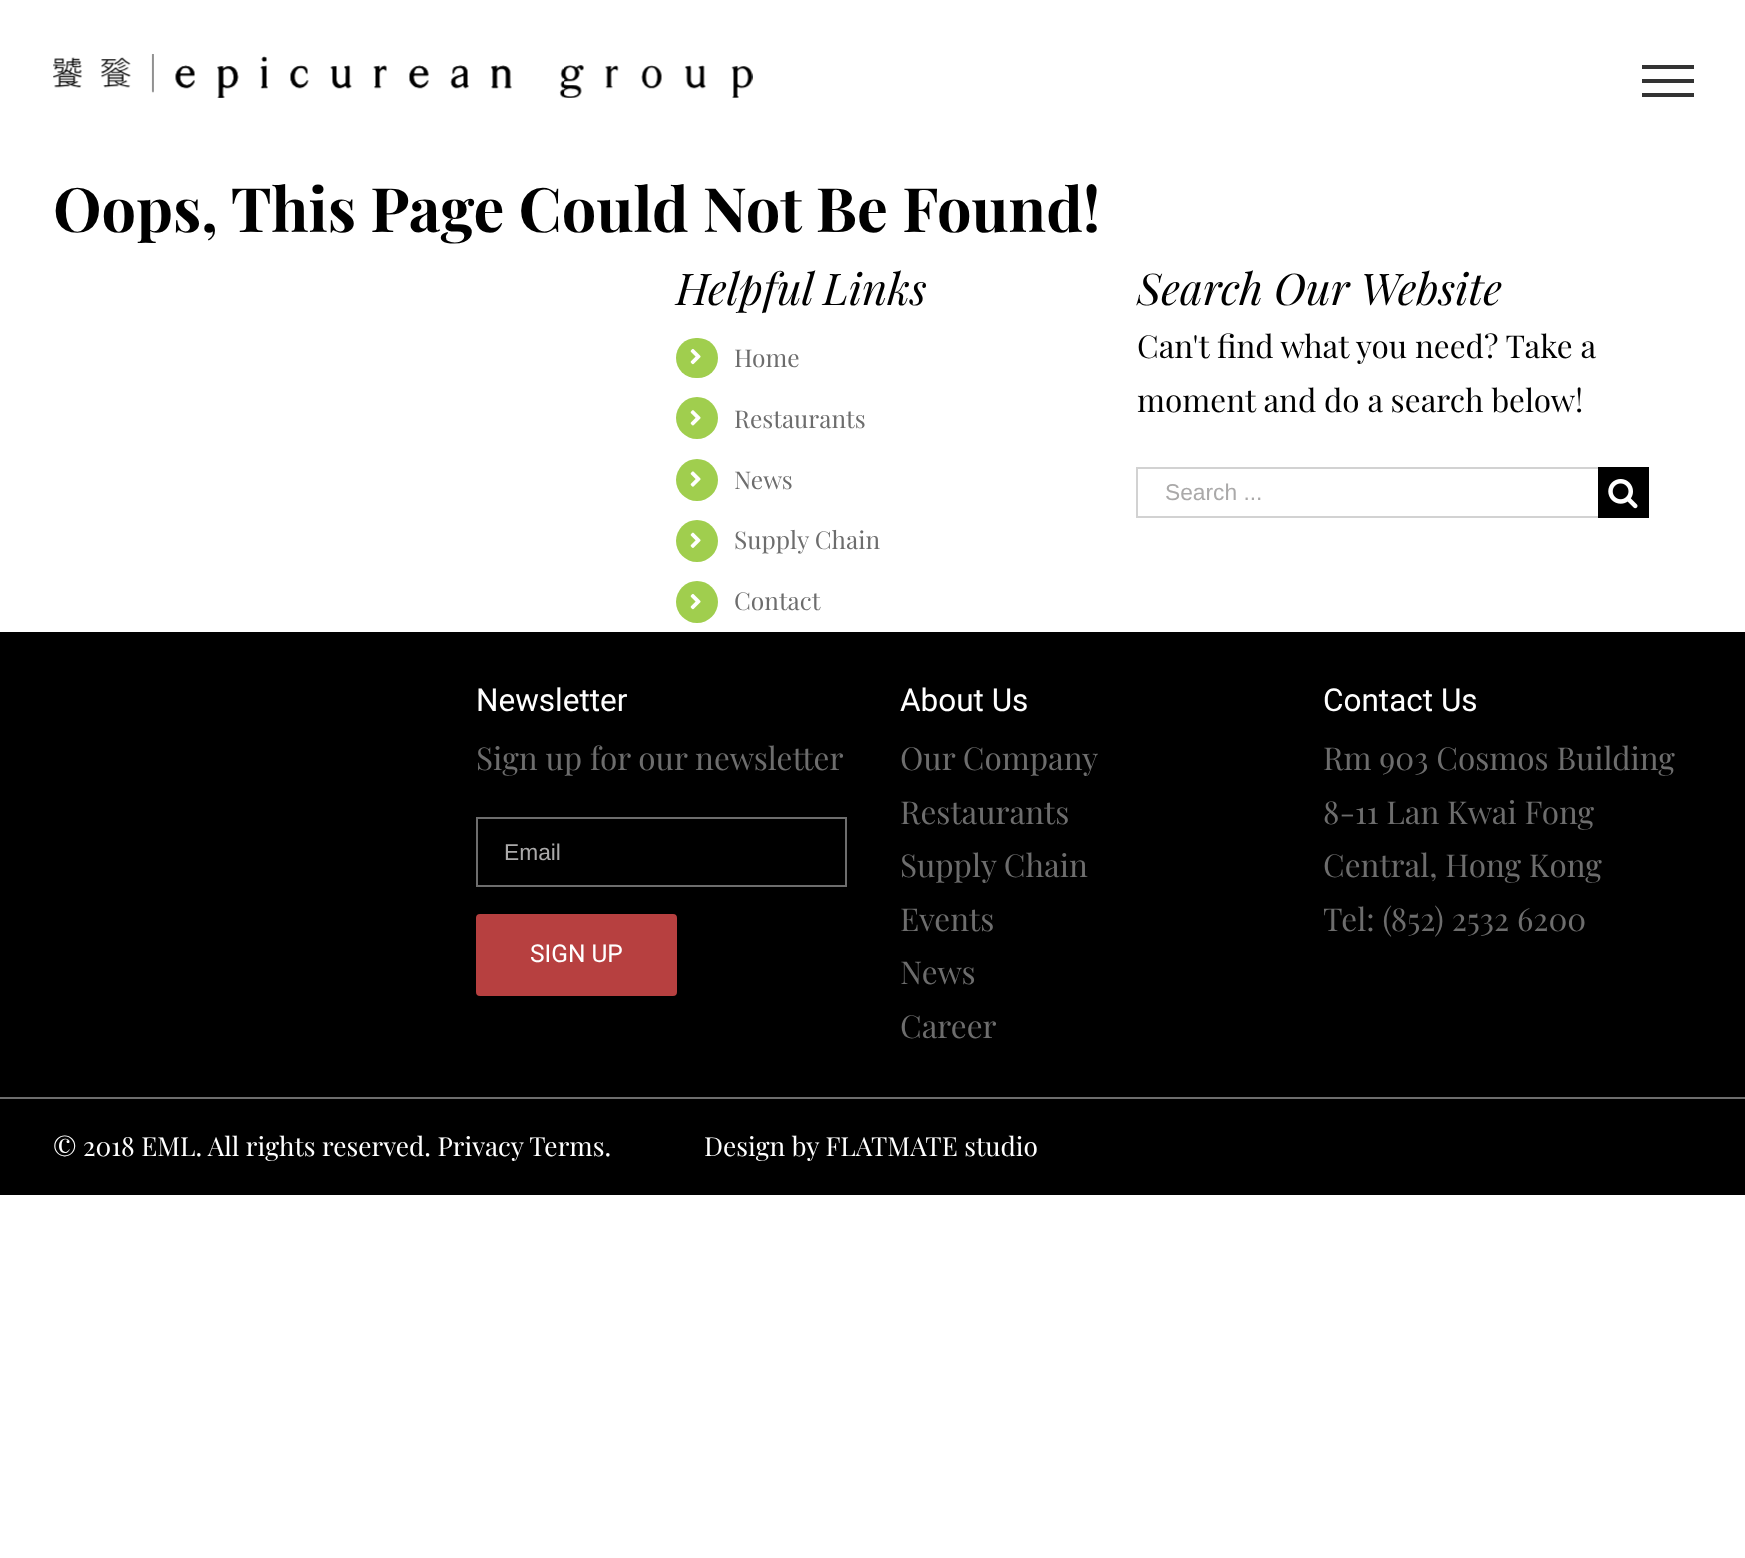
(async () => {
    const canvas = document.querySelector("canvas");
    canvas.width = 1745;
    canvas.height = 1558;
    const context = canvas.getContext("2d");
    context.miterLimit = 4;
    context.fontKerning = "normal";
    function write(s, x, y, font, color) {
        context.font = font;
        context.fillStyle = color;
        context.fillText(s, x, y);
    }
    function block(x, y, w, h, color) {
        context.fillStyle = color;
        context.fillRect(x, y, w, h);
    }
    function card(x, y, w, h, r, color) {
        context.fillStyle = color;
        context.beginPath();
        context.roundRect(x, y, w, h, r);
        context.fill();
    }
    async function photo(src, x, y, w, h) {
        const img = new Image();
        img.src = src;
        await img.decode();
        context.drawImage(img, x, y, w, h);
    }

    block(0, 0, 1745, 1558, "rgb(255, 255, 255)");
    await photo("media/1.png", 53, 54, 700, 44);
    block(1642, 65, 52, 4, "rgb(51, 51, 51)");
    block(1642, 79, 52, 4, "rgb(51, 51, 51)");
    block(1642, 93, 52, 4, "rgb(51, 51, 51)");
    write("Oops, This Page Could Not Be Found!", 53, 232, "bold 61.25px Playfair Display", "rgb(0, 0, 0)");
    write("Helpful Links", 676, 305, "italic 43.75px Playfair Display", "rgb(0, 0, 0)");
    card(676, 338, 42, 40, 20, "rgb(160, 206, 78)");
    await photo("media/2.png", 690, 348, 11, 17);
    write("Home", 734, 367, "24.5px Playfair Display", "rgb(109, 109, 109)");
    context.fillStyle = "rgb(160, 206, 78)";
    context.beginPath();
    context.arc(697, 418, 21, 0, Math.PI * 2);
    context.fill();
    await photo("media/3.png", 690, 410, 11, 16);
    write("Restaurants", 734, 428, "24.5px Playfair Display", "rgb(109, 109, 109)");
    context.fillStyle = "rgb(160, 206, 78)";
    context.beginPath();
    context.arc(697, 480, 21, 0, Math.PI * 2);
    context.fill();
    await photo("media/4.png", 690, 471, 11, 16);
    write("News", 734, 489, "24.5px Playfair Display", "rgb(109, 109, 109)");
    context.fillStyle = "rgb(160, 206, 78)";
    context.beginPath();
    context.arc(697, 541, 21, 0, Math.PI * 2);
    context.fill();
    await photo("media/5.png", 690, 532, 11, 16);
    write("Supply Chain", 734, 549, "24.5px Playfair Display", "rgb(109, 109, 109)");
    context.fillStyle = "rgb(160, 206, 78)";
    context.beginPath();
    context.arc(697, 602, 21, 0, Math.PI * 2);
    context.fill();
    await photo("media/2.png", 690, 593, 11, 17);
    write("Contact", 734, 610, "24.5px Playfair Display", "rgb(109, 109, 109)");
    write("Search Our Website", 1137, 305, "italic 43.75px Playfair Display", "rgb(0, 0, 0)");
    write("Can't find what you need? Take a", 1137, 358, "31.5px Playfair Display", "rgb(0, 0, 0)");
    write("moment and do a search below!", 1137, 412, "31.5px Playfair Display", "rgb(0, 0, 0)");
    block(1136, 467, 462, 2, "rgb(210, 210, 210)");
    block(1136, 516, 462, 2, "rgb(210, 210, 210)");
    block(1136, 467, 2, 51, "rgb(210, 210, 210)");
    write("Search ...", 1165, 500, "22.75px Liberation Sans", "rgb(170, 169, 169)");
    block(1598, 467, 51, 51, "rgb(0, 0, 0)");
    await photo("media/6.png", 1608, 479, 30, 30);
    block(0, 632, 1745, 465, "rgb(0, 0, 0)");
    write("Newsletter", 476, 711, "31.5px Roboto", "rgb(255, 255, 255)");
    write("Sign up for our newsletter", 476, 770, "31.5px Playfair Display", "rgb(109, 109, 109)");
    context.strokeStyle = "rgb(109, 109, 109)";
    context.lineWidth = 2;
    context.strokeRect(477, 818, 369, 68);
    write("Email", 504, 860, "22.75px Liberation Sans", "rgb(170, 169, 169)");
    context.fillStyle = "rgb(183, 64, 64)";
    context.beginPath();
    context.roundRect(478, 916, 197, 78, 2);
    context.fill();
    context.strokeStyle = "rgb(183, 64, 64)";
    context.lineWidth = 4;
    context.stroke();
    write("SIGN UP", 530, 962, "24.5px Roboto", "rgb(255, 255, 255)");
    write("About Us", 900, 711, "31.5px Roboto", "rgb(255, 255, 255)");
    write("Our Company", 900, 770, "31.5px Playfair Display", "rgb(109, 109, 109)");
    write("Restaurants", 900, 824, "31.5px Playfair Display", "rgb(109, 109, 109)");
    write("Supply Chain", 900, 877, "31.5px Playfair Display", "rgb(109, 109, 109)");
    write("Events", 900, 931, "31.5px Playfair Display", "rgb(109, 109, 109)");
    write("News", 900, 984, "31.5px Playfair Display", "rgb(109, 109, 109)");
    write("Career", 900, 1038, "31.5px Playfair Display", "rgb(109, 109, 109)");
    write("Contact Us", 1323, 711, "31.5px Roboto", "rgb(255, 255, 255)");
    write("Rm 903 Cosmos Building", 1323, 770, "31.5px Playfair Display", "rgb(109, 109, 109)");
    write("8-11 Lan Kwai Fong", 1323, 824, "31.5px Playfair Display", "rgb(109, 109, 109)");
    write("Central, Hong Kong", 1323, 877, "31.5px Playfair Display", "rgb(109, 109, 109)");
    write("Tel: (852) 2532 6200", 1323, 931, "31.5px Playfair Display", "rgb(109, 109, 109)");
    block(0, 1099, 1745, 96, "rgb(0, 0, 0)");
    block(0, 1097, 1745, 2, "rgb(109, 109, 109)");
    write("© 2018 EML. All rights reserved. Privacy Terms.", 53, 1156, "26.25px Playfair Display", "rgb(255, 255, 255)");
    write("Design by FLATMATE studio", 704, 1156, "26.25px Playfair Display", "rgb(255, 255, 255)");
})();
